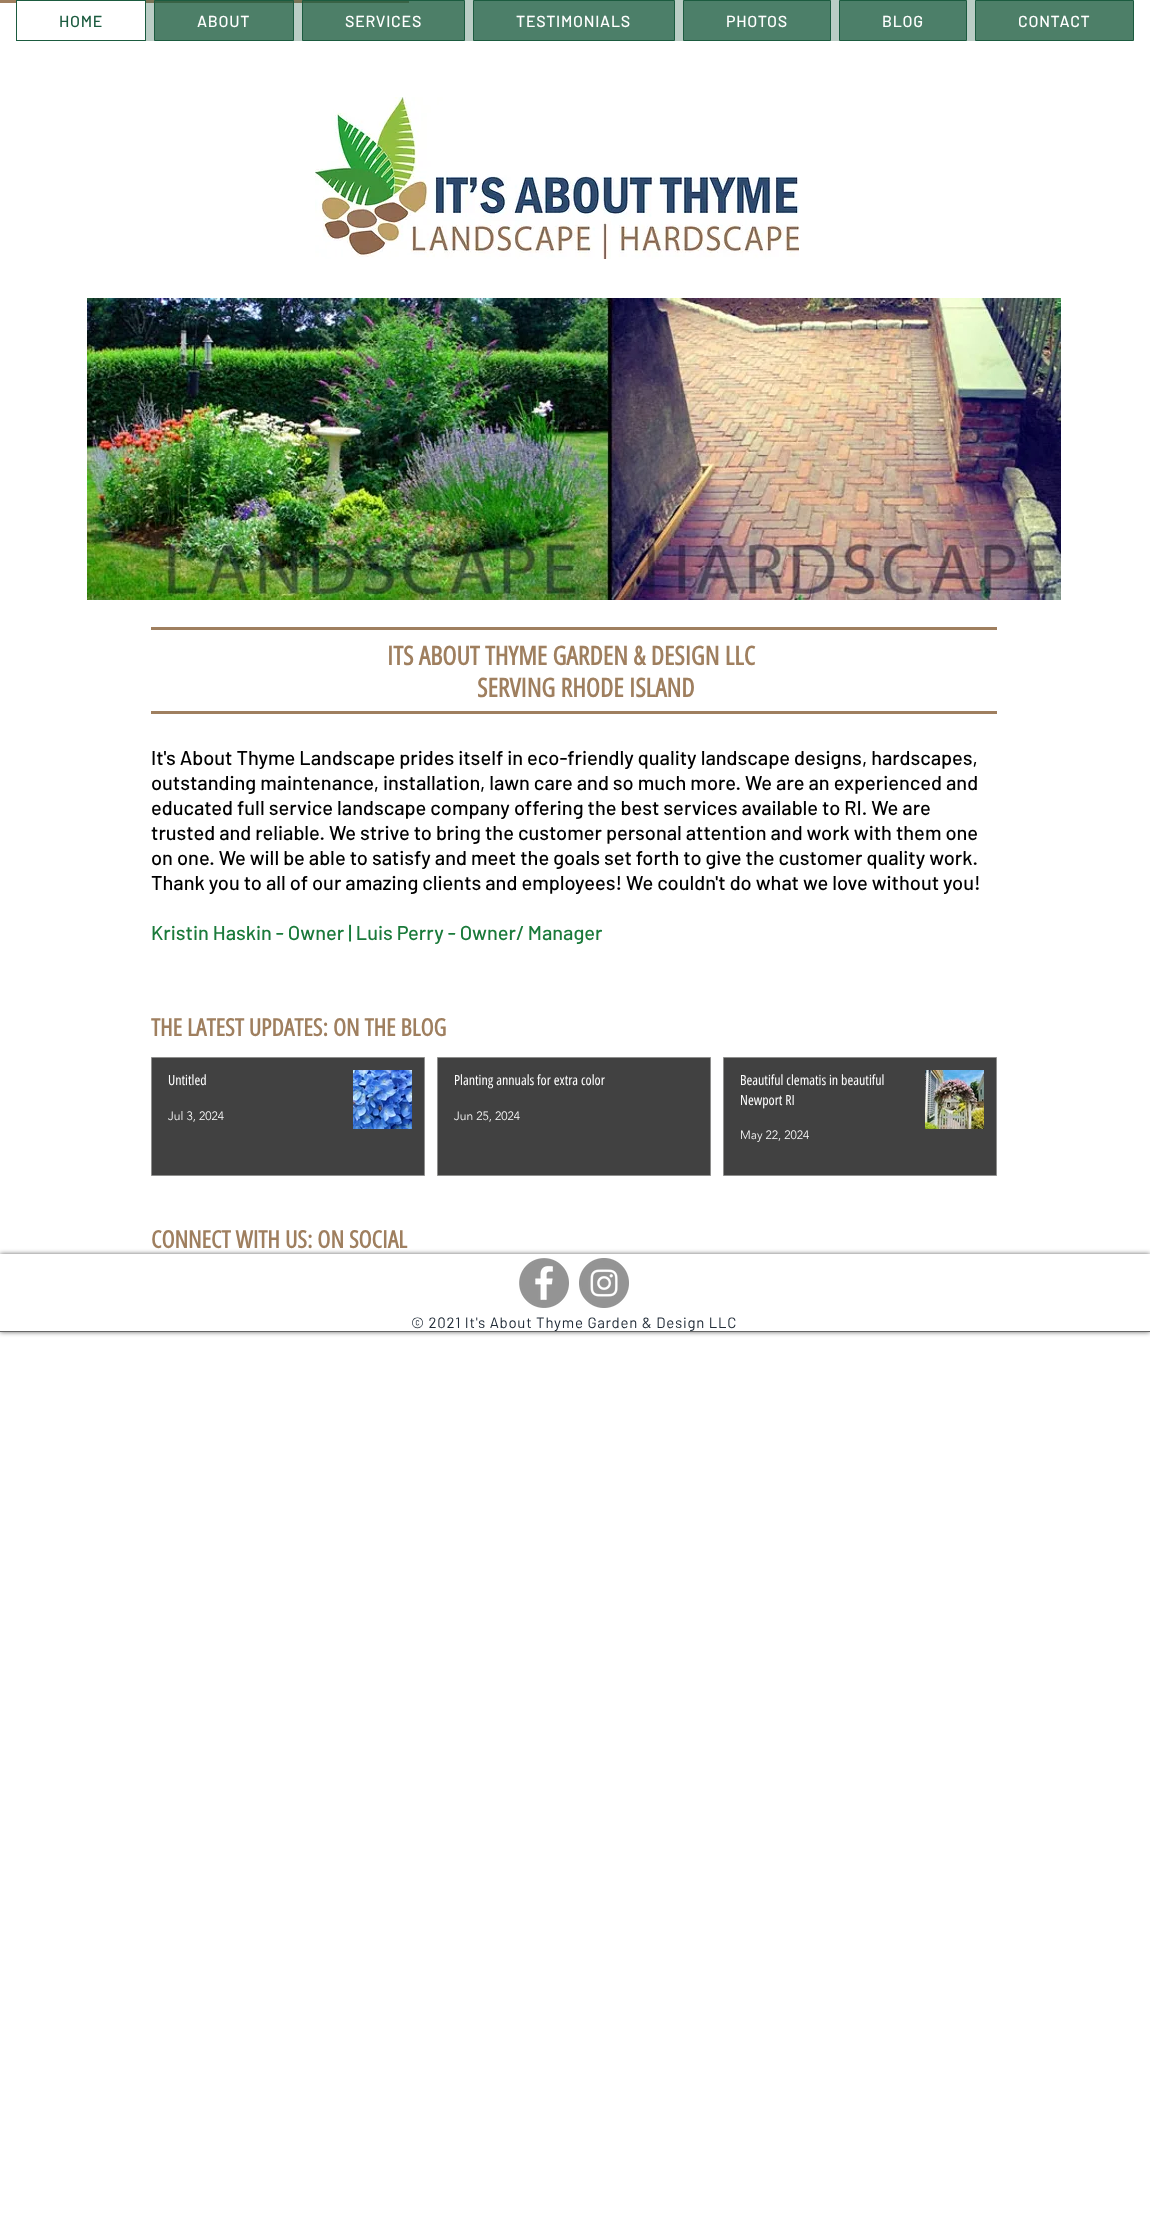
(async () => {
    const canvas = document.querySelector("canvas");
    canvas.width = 1150;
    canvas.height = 2229;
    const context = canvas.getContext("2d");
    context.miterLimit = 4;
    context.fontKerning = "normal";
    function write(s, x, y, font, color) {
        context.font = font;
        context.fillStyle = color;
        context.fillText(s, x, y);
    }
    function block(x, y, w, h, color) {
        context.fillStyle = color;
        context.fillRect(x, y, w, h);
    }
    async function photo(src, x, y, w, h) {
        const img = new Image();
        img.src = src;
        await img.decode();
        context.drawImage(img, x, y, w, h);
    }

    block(0, 0, 1150, 2229, "rgb(255, 255, 255)");
    block(0, 0, 409, 3, "rgb(159, 127, 95)");
    block(146, 0, 987, 41, "rgba(27, 91, 63, 0.3)");
    block(17, 1, 128, 2, "rgb(255, 255, 255)");
    context.strokeStyle = "rgb(27, 91, 63)";
    context.strokeRect(16.5, 0.5, 129, 40);
    context.letterSpacing = "0.75px";
    write("HOME", 59, 27, "500 16px Barlow", "rgb(27, 91, 63)");
    context.fillStyle = "rgba(27, 91, 63, 0.69)";
    context.beginPath();
    context.rect(154.5, 0.5, 139, 40);
    context.fill();
    context.stroke();
    write("ABOUT", 197, 27, "500 16px Barlow", "rgb(255, 255, 255)");
    context.fillStyle = "rgba(27, 91, 63, 0.69)";
    context.beginPath();
    context.rect(302.5, 0.5, 162, 40);
    context.fill();
    context.stroke();
    write("SERVICES", 345, 27, "500 16px Barlow", "rgb(255, 255, 255)");
    context.fillStyle = "rgb(76, 127, 105)";
    context.beginPath();
    context.rect(473.5, 0.5, 201, 40);
    context.fill();
    context.stroke();
    write("TESTIMONIALS", 516, 27, "500 16px Barlow", "rgb(255, 255, 255)");
    context.fillStyle = "rgb(76, 127, 105)";
    context.beginPath();
    context.rect(683.5, 0.5, 147, 40);
    context.fill();
    context.stroke();
    write("PHOTOS", 726, 27, "500 16px Barlow", "rgb(255, 255, 255)");
    context.fillStyle = "rgb(76, 127, 105)";
    context.beginPath();
    context.rect(839.5, 0.5, 127, 40);
    context.fill();
    context.stroke();
    write("BLOG", 882, 27, "500 16px Barlow", "rgb(255, 255, 255)");
    context.fillStyle = "rgba(27, 91, 63, 0.69)";
    context.beginPath();
    context.rect(975.5, 0.5, 158, 40);
    context.fill();
    context.stroke();
    write("CONTACT", 1018, 27, "500 16px Barlow", "rgb(255, 255, 255)");
    await photo("media/1.png", 315, 97, 484, 162);
    await photo("media/2.png", 87, 298, 974, 302);
    block(151, 627, 846, 3, "rgb(159, 127, 95)");
    context.letterSpacing = "0px";
    write("ITS ABOUT THYME GARDEN & DESIGN LLC", 387, 665, "bold 26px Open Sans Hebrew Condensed", "rgb(159, 127, 95)");
    write("SERVING RHODE ISLAND", 477, 697, "bold 26px Open Sans Hebrew Condensed", "rgb(159, 127, 95)");
    block(151, 711, 846, 3, "rgb(159, 127, 95)");
    write("It's About Thyme Landscape prides itself in eco-friendly quality landscape designs, hardscapes,", 151, 765, "500 20px Barlow", "rgb(0, 0, 0)");
    write("outstanding maintenance, installation, lawn care and so much more. We are an experienced and", 151, 790, "500 20px Barlow", "rgb(0, 0, 0)");
    write("educated full service landscape company offering the best services available to RI. We are", 151, 815, "500 20px Barlow", "rgb(0, 0, 0)");
    write("trusted and reliable. We strive to bring the customer personal attention and work with them one", 151, 840, "500 20px Barlow", "rgb(0, 0, 0)");
    write("on one. We will be able to satisfy and meet the goals set forth to give the customer quality work.", 151, 865, "500 20px Barlow", "rgb(0, 0, 0)");
    write("Thank you to all of our amazing clients and employees! We couldn't do what we love without you!", 151, 890, "500 20px Barlow", "rgb(0, 0, 0)");
    write("Kristin Haskin - Owner | Luis Perry - Owner/ Manager", 151, 940, "500 20px Barlow", "rgb(26, 122, 58)");
    write("THE LATEST UPDATES: ON THE BLOG", 151, 1036, "bold 24px Open Sans Hebrew Condensed", "rgb(159, 127, 95)");
    context.fillStyle = "rgb(65, 65, 65)";
    context.beginPath();
    context.rect(151.5, 1057.5, 273, 118);
    context.fill();
    context.strokeStyle = "rgb(142, 142, 141)";
    context.stroke();
    write("Untitled", 168, 1085, "14px Open Sans Hebrew Condensed", "rgb(255, 255, 255)");
    write("Jul 3, 2024", 168, 1120, "300 12px 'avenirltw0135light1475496'", "rgb(255, 255, 255)");
    await photo("media/3.png", 353, 1070, 59, 59);
    context.fillStyle = "rgb(65, 65, 65)";
    context.beginPath();
    context.rect(437.5, 1057.5, 273, 118);
    context.fill();
    context.stroke();
    write("Planting annuals for extra color", 454, 1085, "14px Open Sans Hebrew Condensed", "rgb(255, 255, 255)");
    write("Jun 25, 2024", 454, 1120, "300 12px 'avenirltw0135light1475496'", "rgb(255, 255, 255)");
    context.fillStyle = "rgb(65, 65, 65)";
    context.beginPath();
    context.rect(723.5, 1057.5, 273, 118);
    context.fill();
    context.stroke();
    write("Beautiful clematis in beautiful", 740, 1085, "14px Open Sans Hebrew Condensed", "rgb(255, 255, 255)");
    write("Newport RI", 740, 1105, "14px Open Sans Hebrew Condensed", "rgb(255, 255, 255)");
    write("May 22, 2024", 740, 1139, "300 12px 'avenirltw0135light1475496'", "rgb(255, 255, 255)");
    await photo("media/4.png", 925, 1070, 59, 59);
    write("CONNECT WITH US: ON SOCIAL", 151, 1248, "bold 24px Open Sans Hebrew Condensed", "rgb(159, 127, 95)");
    context.save();
    context.beginPath();
    context.moveTo(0, 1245);
    context.lineTo(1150, 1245);
    context.lineTo(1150, 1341);
    context.lineTo(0, 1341);
    context.closePath();
    context.moveTo(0, 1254);
    context.lineTo(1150, 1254);
    context.lineTo(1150, 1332);
    context.lineTo(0, 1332);
    context.closePath();
    context.clip("evenodd");
    context.fillStyle = "rgba(0, 0, 0, 0.6)";
    context.filter = "blur(2.5px)";
    context.beginPath();
    context.rect(0, 1254, 1150, 78);
    context.fill();
    context.filter = "none";
    context.restore();
    block(0, 1331, 1150, 1, "rgb(102, 102, 102)");
    await photo("media/5.png", 519, 1258, 50, 50);
    await photo("media/6.png", 579, 1258, 50, 50);
    context.letterSpacing = "0.75px";
    write("© 2021 It's About Thyme Garden & Design LLC", 411, 1328, "15px Barlow", "rgb(32, 43, 55)");
})();
